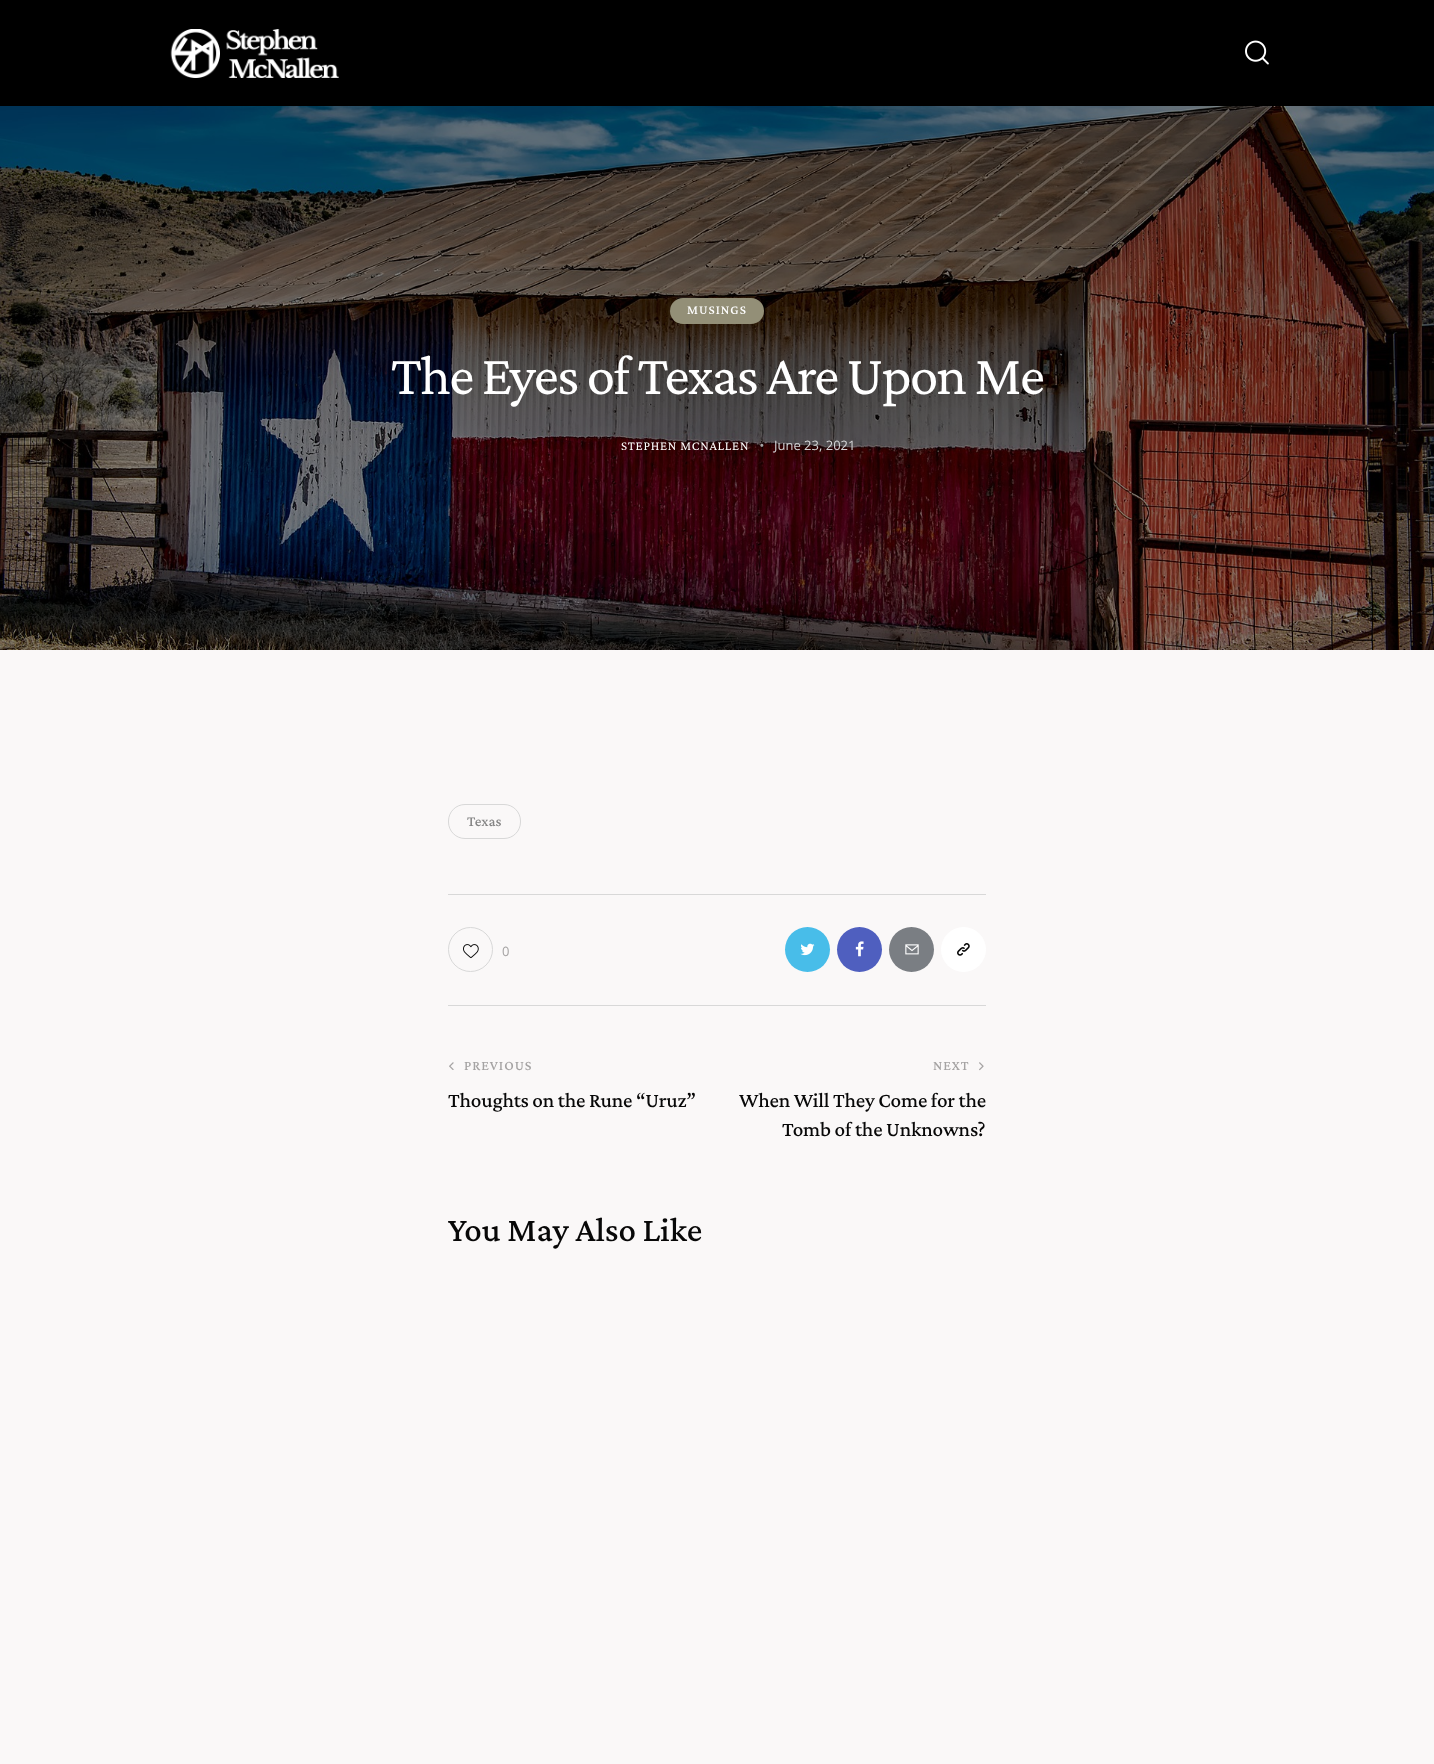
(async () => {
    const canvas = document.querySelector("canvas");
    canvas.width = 1434;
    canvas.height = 1764;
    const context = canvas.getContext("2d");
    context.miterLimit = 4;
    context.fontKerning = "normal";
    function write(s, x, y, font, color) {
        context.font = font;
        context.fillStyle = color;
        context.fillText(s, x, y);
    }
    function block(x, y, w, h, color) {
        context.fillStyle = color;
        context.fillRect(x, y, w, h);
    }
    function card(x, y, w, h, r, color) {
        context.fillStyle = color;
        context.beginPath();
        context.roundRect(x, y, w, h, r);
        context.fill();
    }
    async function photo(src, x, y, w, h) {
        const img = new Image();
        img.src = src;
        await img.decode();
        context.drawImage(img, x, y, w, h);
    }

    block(0, 0, 1434, 1764, "rgb(250, 248, 248)");
    block(0, 0, 1434, 106, "rgb(0, 0, 0)");
    await photo("media/1.png", 170, 29, 169, 49);
    await photo("media/2.png", 1245, 40, 24, 25);
    await photo("media/3.png", 0, 106, 1434, 544);
    card(670, 298, 94, 26, 13, "rgb(147, 143, 119)");
    context.letterSpacing = "1px";
    write("MUSINGS", 687, 314, "500 13px Crimson Pro", "rgb(255, 255, 255)");
    context.letterSpacing = "-1.7px";
    write("The Eyes of Texas Are Upon Me", 391, 394, "57px Crimson Pro", "rgb(255, 255, 255)");
    context.letterSpacing = "0.75px";
    write("STEPHEN MCNALLEN", 621, 450, "13px Crimson Pro", "rgb(255, 255, 255)");
    await photo("media/4.png", 760, 443, 4, 4);
    context.letterSpacing = "0px";
    write("June 23, 2021", 774, 450, "13px Open Sans", "rgb(210, 211, 213)");
    context.beginPath();
    context.roundRect(448.5, 804.5, 72, 34, 16.5);
    context.strokeStyle = "rgb(216, 216, 216)";
    context.stroke();
    write("Texas", 467, 826, "500 15px Crimson Pro", "rgb(132, 132, 132)");
    block(448, 894, 538, 1, "rgb(216, 216, 216)");
    context.beginPath();
    context.arc(470.5, 949.5, 22, 0, Math.PI * 2);
    context.stroke();
    await photo("media/5.png", 463, 944, 16, 15);
    write("0", 502, 956, "13px Open Sans", "rgb(165, 163, 163)");
    context.fillStyle = "rgb(72, 189, 233)";
    context.beginPath();
    context.arc(807.5, 949.5, 22.5, 0, Math.PI * 2);
    context.fill();
    await photo("media/6.png", 800, 943, 15, 13);
    context.fillStyle = "rgb(79, 95, 191)";
    context.beginPath();
    context.arc(859.5, 949.5, 22.5, 0, Math.PI * 2);
    context.fill();
    await photo("media/7.png", 855, 941, 9, 16);
    context.fillStyle = "rgb(122, 126, 131)";
    context.beginPath();
    context.arc(911.5, 949.5, 22.5, 0, Math.PI * 2);
    context.fill();
    await photo("media/8.png", 905, 944, 14, 11);
    context.fillStyle = "rgb(255, 255, 255)";
    context.beginPath();
    context.arc(963.5, 949.5, 22.5, 0, Math.PI * 2);
    context.fill();
    await photo("media/9.png", 957, 943, 13, 13);
    block(448, 1005, 538, 1, "rgb(216, 216, 216)");
    await photo("media/10.png", 449, 1062, 5, 8);
    context.letterSpacing = "1px";
    write("PREVIOUS", 464, 1070, "500 14px Crimson Pro", "rgb(165, 163, 163)");
    context.letterSpacing = "-0.2px";
    write("Thoughts on the Rune “Uruz”", 448, 1107, "500 21px Crimson Pro", "rgb(8, 8, 8)");
    context.letterSpacing = "1px";
    write("NEXT", 933, 1070, "500 14px Crimson Pro", "rgb(165, 163, 163)");
    await photo("media/11.png", 979, 1062, 5, 9);
    context.letterSpacing = "-0.2px";
    write("When Will They Come for the", 739, 1107, "500 21px Crimson Pro", "rgb(8, 8, 8)");
    write("Tomb of the Unknowns?", 782, 1136, "500 21px Crimson Pro", "rgb(8, 8, 8)");
    context.letterSpacing = "0px";
    write("You May Also Like", 448, 1241, "500 34.75px Crimson Pro", "rgb(8, 8, 8)");
})();
